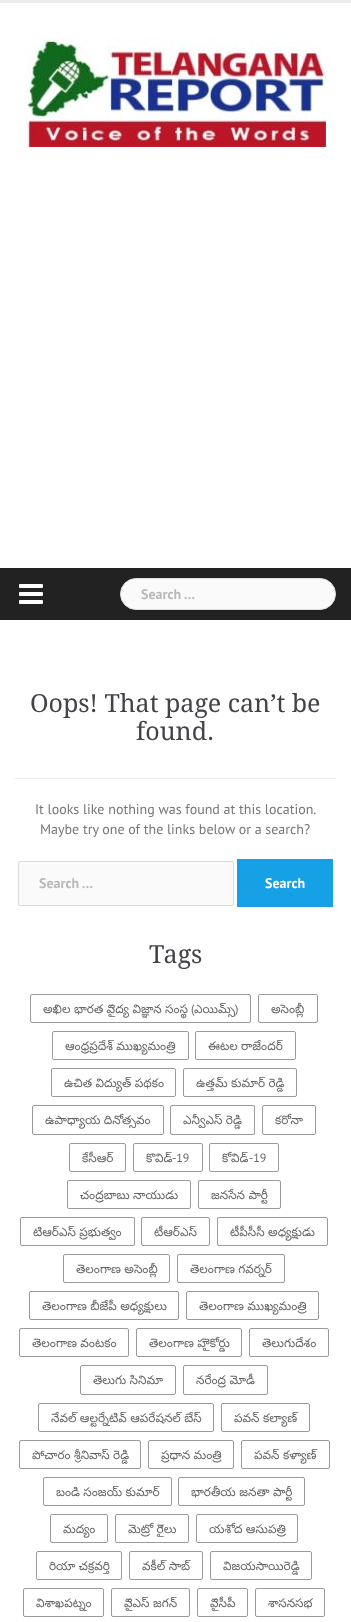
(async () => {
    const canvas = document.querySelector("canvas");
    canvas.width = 351;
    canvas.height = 1622;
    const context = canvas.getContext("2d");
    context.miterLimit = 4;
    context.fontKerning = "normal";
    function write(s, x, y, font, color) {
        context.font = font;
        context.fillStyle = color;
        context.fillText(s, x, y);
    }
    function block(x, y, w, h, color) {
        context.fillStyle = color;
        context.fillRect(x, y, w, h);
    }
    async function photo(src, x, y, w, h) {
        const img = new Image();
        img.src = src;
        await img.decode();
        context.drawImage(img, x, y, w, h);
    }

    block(0, 0, 351, 1622, "rgb(255, 255, 255)");
    block(0, 0, 351, 3, "rgb(235, 235, 235)");
    await photo("media/1.png", 26, 38, 300, 109);
    block(0, 568, 351, 52, "rgb(34, 34, 34)");
    await photo("media/2.png", 19, 584, 24, 20);
    context.fillStyle = "rgb(250, 250, 250)";
    context.beginPath();
    context.roundRect(120.5, 578.5, 215, 31, 15.5);
    context.fill();
    context.strokeStyle = "rgb(223, 223, 223)";
    context.stroke();
    write("Search …", 141, 599, "bold 14px PT Sans", "rgb(185, 185, 185)");
    block(15, 778, 321, 1, "rgb(238, 238, 238)");
    write("Oops! That page can’t be", 30, 712, "25px Droid Serif", "rgb(66, 67, 71)");
    write("found.", 136, 740, "25px Droid Serif", "rgb(66, 67, 71)");
    write("It looks like nothing was found at this location.", 35, 814, "14px PT Sans", "rgb(118, 118, 118)");
    write("Maybe try one of the links below or a search?", 40, 834, "14px PT Sans", "rgb(118, 118, 118)");
    context.fillStyle = "rgb(250, 250, 250)";
    context.beginPath();
    context.roundRect(18.5, 861.5, 215, 44, 1.5);
    context.fill();
    context.strokeStyle = "rgb(219, 219, 219)";
    context.stroke();
    write("Search …", 39, 888, "bold 14px PT Sans", "rgb(185, 185, 185)");
    block(237, 859, 96, 48, "rgb(22, 161, 231)");
    write("Search", 265, 888, "bold 14px PT Sans", "rgb(255, 255, 255)");
    write("Tags", 149, 963, "25px Droid Serif", "rgb(66, 67, 71)");
    context.beginPath();
    context.roundRect(30.5, 994.5, 220, 28, 1.5);
    context.strokeStyle = "rgb(154, 154, 154)";
    context.stroke();
    write("అఖిల భారత వైద్య విజ్ఞాన సంస్థ", 43, 1013, "12px Noto Sans Telugu", "rgb(102, 102, 102)");
    write("(", 191, 1013, "12px PT Sans", "rgb(102, 102, 102)");
    write("ఎయిమ్స్", 194, 1013, "12px Noto Sans Telugu", "rgb(102, 102, 102)");
    write(")", 235, 1013, "12px PT Sans", "rgb(102, 102, 102)");
    context.beginPath();
    context.roundRect(258.5, 994.5, 59, 28, 1.5);
    context.stroke();
    write("అసెంబ్లీ", 271, 1013, "12px Noto Sans Telugu", "rgb(102, 102, 102)");
    context.beginPath();
    context.roundRect(52.5, 1031.5, 136, 28, 1.5);
    context.stroke();
    write("ఆంధ్రప్రదేశ్ ముఖ్యమంత్రి", 65, 1050, "12px Noto Sans Telugu", "rgb(102, 102, 102)");
    context.beginPath();
    context.roundRect(195.5, 1031.5, 100, 28, 1.5);
    context.stroke();
    write("ఈటల రాజేందర్", 208, 1050, "12px Noto Sans Telugu", "rgb(102, 102, 102)");
    context.beginPath();
    context.roundRect(51.5, 1068.5, 124, 28, 1.5);
    context.stroke();
    write("ఉచిత విద్యుత్ పథకం", 64, 1087, "12px Noto Sans Telugu", "rgb(102, 102, 102)");
    context.beginPath();
    context.roundRect(183.5, 1068.5, 113, 28, 1.5);
    context.stroke();
    write("ఉత్తమ్ కుమార్ రెడ్డి", 196, 1087, "12px Noto Sans Telugu", "rgb(102, 102, 102)");
    context.beginPath();
    context.roundRect(32.5, 1105.5, 131, 29, 1.5);
    context.stroke();
    write("ఉపాధ్యాయ దినోత్సవం", 45, 1124, "12px Noto Sans Telugu", "rgb(102, 102, 102)");
    context.beginPath();
    context.roundRect(170.5, 1105.5, 84, 29, 1.5);
    context.stroke();
    write("ఎన్వీఎస్ రెడ్డి", 183, 1124, "12px Noto Sans Telugu", "rgb(102, 102, 102)");
    context.beginPath();
    context.roundRect(262.5, 1105.5, 53, 29, 1.5);
    context.stroke();
    write("కరోనా", 275, 1124, "12px Noto Sans Telugu", "rgb(102, 102, 102)");
    context.beginPath();
    context.roundRect(69.5, 1143.5, 56, 28, 1.5);
    context.stroke();
    write("కేసీఆర్", 82, 1162, "12px Noto Sans Telugu", "rgb(102, 102, 102)");
    context.beginPath();
    context.roundRect(133.5, 1143.5, 69, 28, 1.5);
    context.stroke();
    write("కొవిడ్", 146, 1162, "12px Noto Sans Telugu", "rgb(102, 102, 102)");
    write("-19", 172, 1162, "12px PT Sans", "rgb(102, 102, 102)");
    context.beginPath();
    context.roundRect(209.5, 1143.5, 69, 28, 1.5);
    context.stroke();
    write("కోవిడ్", 222, 1162, "12px Noto Sans Telugu", "rgb(102, 102, 102)");
    write("-19", 249, 1162, "12px PT Sans", "rgb(102, 102, 102)");
    context.beginPath();
    context.roundRect(67.5, 1180.5, 123, 28, 1.5);
    context.stroke();
    write("చంద్రబాబు నాయుడు", 80, 1199, "12px Noto Sans Telugu", "rgb(102, 102, 102)");
    context.beginPath();
    context.roundRect(198.5, 1180.5, 82, 28, 1.5);
    context.stroke();
    write("జనసేన పార్టీ", 211, 1199, "12px Noto Sans Telugu", "rgb(102, 102, 102)");
    context.beginPath();
    context.roundRect(20.5, 1217.5, 114, 28, 1.5);
    context.stroke();
    write("టిఆర్ఎస్ ప్రభుత్వం", 33, 1236, "12px Noto Sans Telugu", "rgb(102, 102, 102)");
    context.beginPath();
    context.roundRect(141.5, 1217.5, 68, 28, 1.5);
    context.stroke();
    write("టీఆర్ఎస్", 154, 1236, "12px Noto Sans Telugu", "rgb(102, 102, 102)");
    context.beginPath();
    context.roundRect(217.5, 1217.5, 110, 28, 1.5);
    context.stroke();
    write("టీపీసీసీ అధ్యక్షుడు", 230, 1236, "12px Noto Sans Telugu", "rgb(102, 102, 102)");
    context.beginPath();
    context.roundRect(63.5, 1254.5, 106, 28, 1.5);
    context.stroke();
    write("తెలంగాణ అసెంబ్లీ", 76, 1273, "12px Noto Sans Telugu", "rgb(102, 102, 102)");
    context.beginPath();
    context.roundRect(177.5, 1254.5, 107, 28, 1.5);
    context.stroke();
    write("తెలంగాణ గవర్నర్", 190, 1273, "12px Noto Sans Telugu", "rgb(102, 102, 102)");
    context.beginPath();
    context.roundRect(29.5, 1291.5, 149, 28, 1.5);
    context.stroke();
    write("తెలంగాణ బీజేపీ అధ్యక్షులు", 42, 1310, "12px Noto Sans Telugu", "rgb(102, 102, 102)");
    context.beginPath();
    context.roundRect(186.5, 1291.5, 132, 28, 1.5);
    context.stroke();
    write("తెలంగాణ ముఖ్యమంత్రి", 199, 1310, "12px Noto Sans Telugu", "rgb(102, 102, 102)");
    context.beginPath();
    context.roundRect(19.5, 1328.5, 109, 28, 1.5);
    context.stroke();
    write("తెలంగాణ వంటకం", 32, 1347, "12px Noto Sans Telugu", "rgb(102, 102, 102)");
    context.beginPath();
    context.roundRect(136.5, 1328.5, 105, 28, 1.5);
    context.stroke();
    write("తెలంగాణ హైకోర్డు", 149, 1347, "12px Noto Sans Telugu", "rgb(102, 102, 102)");
    context.beginPath();
    context.roundRect(249.5, 1328.5, 79, 28, 1.5);
    context.stroke();
    write("తెలుగుదేశం", 262, 1347, "12px Noto Sans Telugu", "rgb(102, 102, 102)");
    context.beginPath();
    context.roundRect(80.5, 1365.5, 95, 29, 1.5);
    context.stroke();
    write("తెలుగు సినిమా", 93, 1384, "12px Noto Sans Telugu", "rgb(102, 102, 102)");
    context.beginPath();
    context.roundRect(183.5, 1365.5, 84, 29, 1.5);
    context.stroke();
    write("నరేంద్ర మోడీ", 196, 1384, "12px Noto Sans Telugu", "rgb(102, 102, 102)");
    context.beginPath();
    context.roundRect(38.5, 1403.5, 175, 28, 1.5);
    context.stroke();
    write("నేవల్ ఆల్టర్నేటివ్ ఆపరేషనల్ బేస్", 51, 1422, "12px Noto Sans Telugu", "rgb(102, 102, 102)");
    context.beginPath();
    context.roundRect(221.5, 1403.5, 88, 28, 1.5);
    context.stroke();
    write("పవన్ కల్యాణ్", 234, 1422, "12px Noto Sans Telugu", "rgb(102, 102, 102)");
    context.beginPath();
    context.roundRect(19.5, 1440.5, 121, 28, 1.5);
    context.stroke();
    write("పోచారం శ్రీనివాస్‌ రెడ్డి", 32, 1459, "12px Noto Sans Telugu", "rgb(102, 102, 102)");
    context.beginPath();
    context.roundRect(148.5, 1440.5, 85, 28, 1.5);
    context.stroke();
    write("ప్రధాన మంత్రి", 161, 1459, "12px Noto Sans Telugu", "rgb(102, 102, 102)");
    context.beginPath();
    context.roundRect(241.5, 1440.5, 88, 28, 1.5);
    context.stroke();
    write("ప‌వ‌న్ క‌ళ్యాణ్", 254, 1459, "12px Noto Sans Telugu", "rgb(102, 102, 102)");
    context.beginPath();
    context.roundRect(43.5, 1477.5, 128, 28, 1.5);
    context.stroke();
    write("బండి సంజయ్ కుమార్", 56, 1496, "12px Noto Sans Telugu", "rgb(102, 102, 102)");
    context.beginPath();
    context.roundRect(178.5, 1477.5, 126, 28, 1.5);
    context.stroke();
    write("భారతీయ జనతా పార్టీ", 191, 1496, "12px Noto Sans Telugu", "rgb(102, 102, 102)");
    context.beginPath();
    context.roundRect(50.5, 1514.5, 57, 28, 1.5);
    context.stroke();
    write("మద్యం", 63, 1533, "12px Noto Sans Telugu", "rgb(102, 102, 102)");
    context.beginPath();
    context.roundRect(115.5, 1514.5, 73, 28, 1.5);
    context.stroke();
    write("మెట్రో రైలు", 128, 1533, "12px Noto Sans Telugu", "rgb(102, 102, 102)");
    context.beginPath();
    context.roundRect(196.5, 1514.5, 101, 28, 1.5);
    context.stroke();
    write("యశోద ఆసుపత్రి", 209, 1533, "12px Noto Sans Telugu", "rgb(102, 102, 102)");
    context.beginPath();
    context.roundRect(36.5, 1551.5, 85, 28, 1.5);
    context.stroke();
    write("రియా చ‌క్ర‌వ‌ర్తి", 49, 1570, "12px Noto Sans Telugu", "rgb(102, 102, 102)");
    context.beginPath();
    context.roundRect(129.5, 1551.5, 73, 28, 1.5);
    context.stroke();
    write("వకీల్ సాబ్", 142, 1570, "12px Noto Sans Telugu", "rgb(102, 102, 102)");
    context.beginPath();
    context.roundRect(210.5, 1551.5, 101, 28, 1.5);
    context.stroke();
    write("విజ‌య‌సాయిరెడ్డి", 223, 1570, "12px Noto Sans Telugu", "rgb(102, 102, 102)");
    context.beginPath();
    context.roundRect(23.5, 1588.5, 80, 28, 1.5);
    context.stroke();
    write("విశాఖపట్నం", 36, 1607, "12px Noto Sans Telugu", "rgb(102, 102, 102)");
    context.beginPath();
    context.roundRect(111.5, 1588.5, 78, 28, 1.5);
    context.stroke();
    write("వైఎస్ జగన్", 124, 1607, "12px Noto Sans Telugu", "rgb(102, 102, 102)");
    context.beginPath();
    context.roundRect(197.5, 1588.5, 50, 28, 1.5);
    context.stroke();
    write("వైసీపీ", 210, 1607, "12px Noto Sans Telugu", "rgb(102, 102, 102)");
    context.beginPath();
    context.roundRect(255.5, 1588.5, 69, 28, 1.5);
    context.stroke();
    write("శాస‌న‌స‌భ", 268, 1607, "12px Noto Sans Telugu", "rgb(102, 102, 102)");
})();
